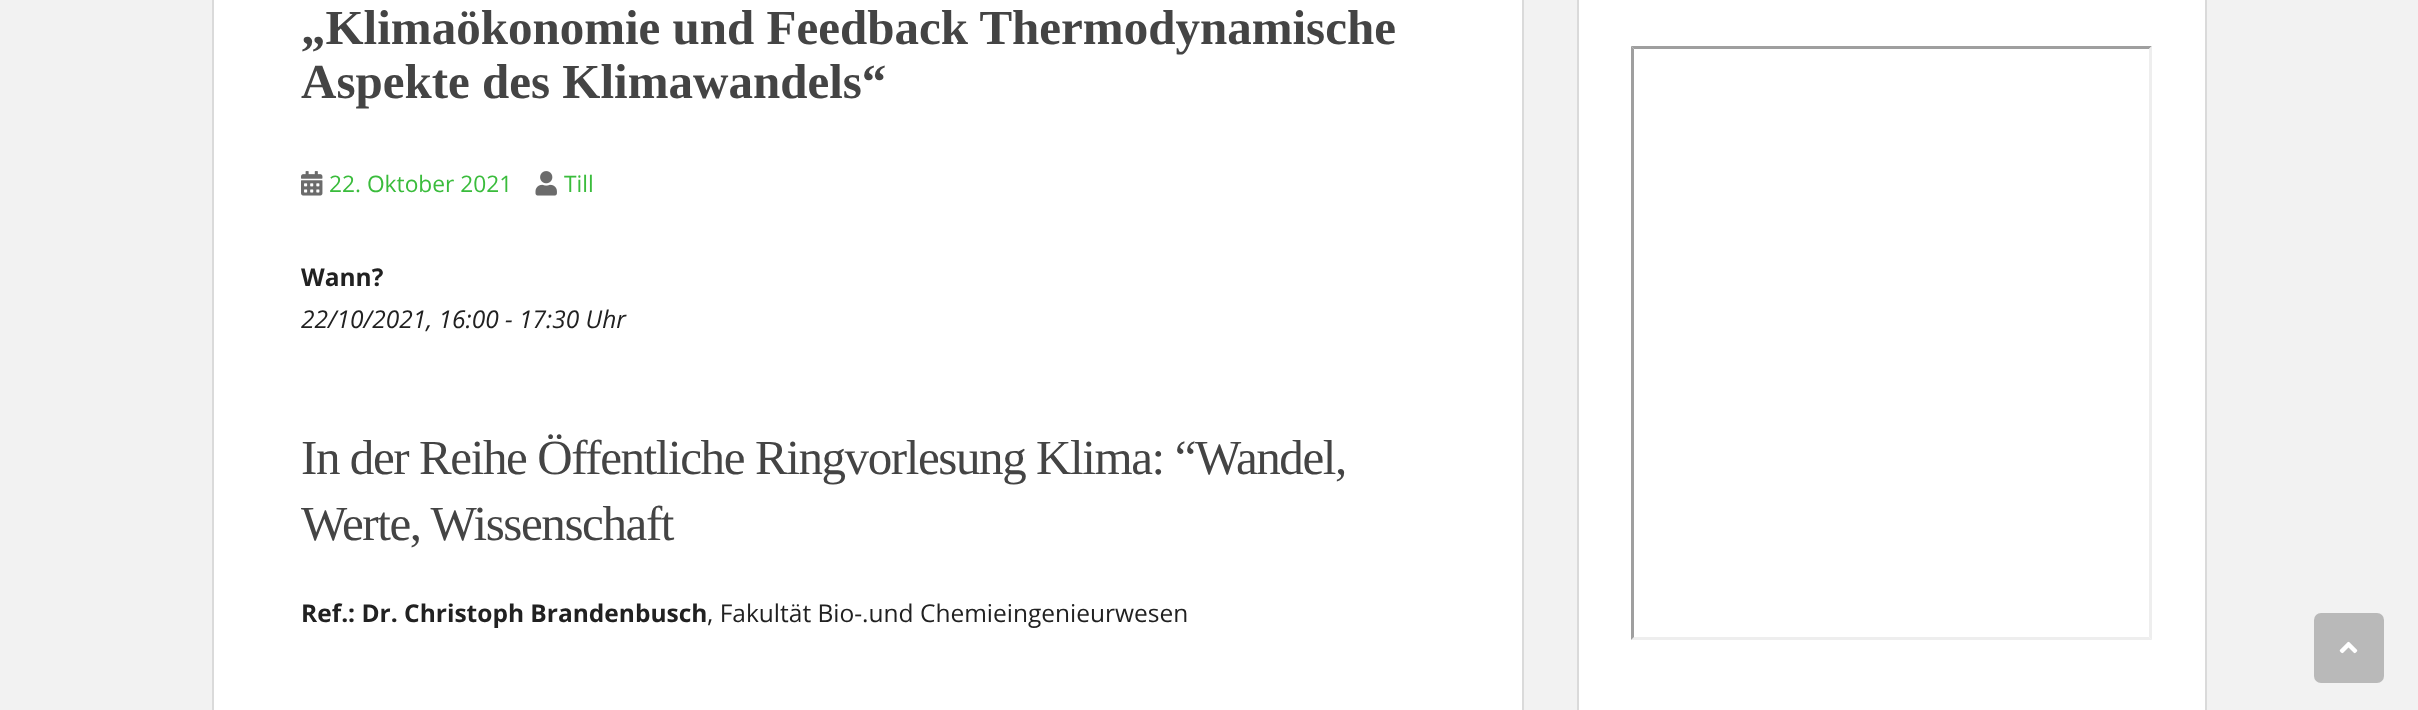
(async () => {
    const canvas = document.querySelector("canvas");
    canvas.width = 2418;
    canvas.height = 710;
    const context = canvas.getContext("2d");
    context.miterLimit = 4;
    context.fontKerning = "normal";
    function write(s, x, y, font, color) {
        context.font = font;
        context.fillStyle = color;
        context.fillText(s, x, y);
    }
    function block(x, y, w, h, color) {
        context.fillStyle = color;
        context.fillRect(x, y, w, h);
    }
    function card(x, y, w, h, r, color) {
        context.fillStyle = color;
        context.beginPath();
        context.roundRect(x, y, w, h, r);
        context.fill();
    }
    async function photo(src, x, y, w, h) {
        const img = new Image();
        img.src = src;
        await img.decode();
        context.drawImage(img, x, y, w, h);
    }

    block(0, 0, 2418, 710, "rgb(242, 242, 242)");
    context.fillStyle = "rgb(255, 255, 255)";
    context.beginPath();
    context.rect(213, -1, 1310, 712);
    context.fill();
    context.strokeStyle = "rgb(218, 218, 218)";
    context.lineWidth = 2;
    context.stroke();
    write("„Klimaökonomie und Feedback Thermodynamische", 301, 44, "bold 49px Liberation Serif", "rgb(68, 68, 68)");
    write("Aspekte des Klimawandels“", 301, 98, "bold 49px Liberation Serif", "rgb(68, 68, 68)");
    await photo("media/1.png", 301, 171, 22, 25);
    write("22. Oktober 2021", 329, 192, "22.75px Open Sans", "rgb(58, 188, 60)");
    await photo("media/2.png", 535, 171, 22, 25);
    write("Till", 564, 192, "22.75px Open Sans", "rgb(58, 188, 60)");
    write("Wann?", 301, 286, "bold 24.5px Open Sans", "rgb(33, 33, 33)");
    write("22/10/2021, 16:00 - 17:30 Uhr", 301, 328, "italic 24.5px Open Sans", "rgb(33, 33, 33)");
    context.letterSpacing = "-1.4px";
    write("In der Reihe Öffentliche Ringvorlesung Klima: “Wandel,", 301, 474, "49px Liberation Serif", "rgb(68, 68, 68)");
    write("Werte, Wissenschaft", 301, 540, "49px Liberation Serif", "rgb(68, 68, 68)");
    context.letterSpacing = "0px";
    write("Ref.: Dr. Christoph Brandenbusch", 301, 622, "bold 24.5px Open Sans", "rgb(33, 33, 33)");
    write(", Fakultät Bio-.und Chemieingenieurwesen", 707, 622, "24.5px Open Sans", "rgb(33, 33, 33)");
    context.fillStyle = "rgb(255, 255, 255)";
    context.beginPath();
    context.rect(1578, -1, 628, 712);
    context.fill();
    context.stroke();
    context.fillStyle = "rgb(159, 159, 159)";
    context.beginPath();
    context.moveTo(1631, 46);
    context.lineTo(2152, 46);
    context.lineTo(2149, 49);
    context.lineTo(1634, 49);
    context.closePath();
    context.fill();
    context.fillStyle = "rgb(238, 238, 238)";
    context.beginPath();
    context.moveTo(2152, 46);
    context.lineTo(2152, 640);
    context.lineTo(2149, 637);
    context.lineTo(2149, 49);
    context.closePath();
    context.fill();
    context.beginPath();
    context.moveTo(2152, 640);
    context.lineTo(1631, 640);
    context.lineTo(1634, 637);
    context.lineTo(2149, 637);
    context.closePath();
    context.fill();
    context.fillStyle = "rgb(159, 159, 159)";
    context.beginPath();
    context.moveTo(1631, 640);
    context.lineTo(1631, 46);
    context.lineTo(1634, 49);
    context.lineTo(1634, 637);
    context.closePath();
    context.fill();
    card(2314, 613, 70, 70, 7, "rgb(185, 185, 185)");
    await photo("media/3.png", 2339, 641, 19, 13);
})();
